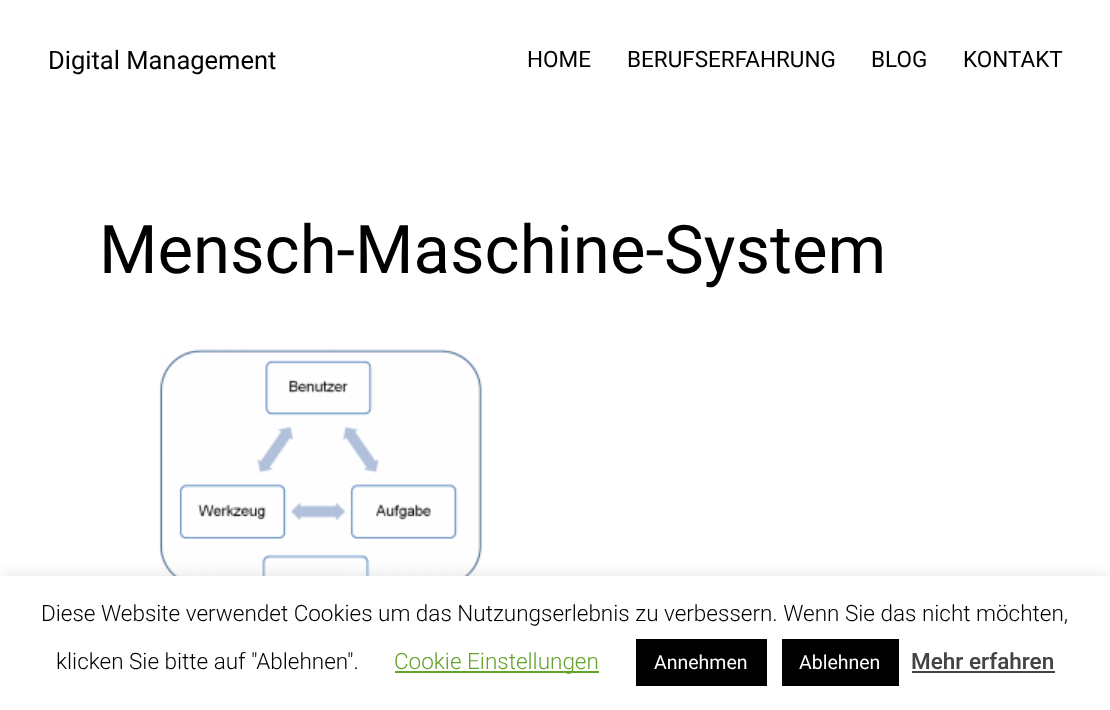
(async () => {
    const canvas = document.querySelector("canvas");
    canvas.width = 1110;
    canvas.height = 710;
    const context = canvas.getContext("2d");
    context.miterLimit = 4;
    context.fontKerning = "normal";
    function write(s, x, y, font, color) {
        context.font = font;
        context.fillStyle = color;
        context.fillText(s, x, y);
    }
    function block(x, y, w, h, color) {
        context.fillStyle = color;
        context.fillRect(x, y, w, h);
    }
    async function photo(src, x, y, w, h) {
        const img = new Image();
        img.src = src;
        await img.decode();
        context.drawImage(img, x, y, w, h);
    }

    block(0, 0, 1110, 710, "rgb(255, 255, 255)");
    write("Digital Management", 48, 69, "25.5px Roboto", "rgb(0, 0, 0)");
    write("HOME", 527, 67, "22.5px Roboto", "rgb(0, 0, 0)");
    write("BERUFSERFAHRUNG", 627, 67, "22.5px Roboto", "rgb(0, 0, 0)");
    write("BLOG", 871, 67, "22.5px Roboto", "rgb(0, 0, 0)");
    write("KONTAKT", 963, 67, "22.5px Roboto", "rgb(0, 0, 0)");
    write("Mensch-Maschine-System", 99, 273, "67px Roboto", "rgb(0, 0, 0)");
    await photo("media/1.png", 159, 349, 323, 227);
    context.fillStyle = "rgba(172, 171, 171, 0.3)";
    context.filter = "blur(7.5px)";
    context.beginPath();
    context.rect(0, 575, 1110, 135);
    context.fill();
    context.filter = "none";
    block(0, 576, 1110, 134, "rgb(255, 255, 255)");
    write("Diese Website verwendet Cookies um das Nutzungserlebnis zu verbessern. Wenn Sie das nicht möchten,", 41, 621, "300 22.5px Roboto", "rgb(0, 0, 0)");
    write("klicken Sie bitte auf \"Ablehnen\".", 56, 669, "300 22.5px Roboto", "rgb(0, 0, 0)");
    block(395, 671, 204, 2, "rgb(98, 163, 41)");
    write("Cookie Einstellungen", 394, 669, "300 22.5px Roboto", "rgb(98, 163, 41)");
    block(636, 639, 131, 47, "rgb(0, 0, 0)");
    write("Annehmen", 654, 669, "19.5px Roboto", "rgb(255, 255, 255)");
    block(782, 639, 117, 47, "rgb(0, 0, 0)");
    write("Ablehnen", 799, 669, "19.5px Roboto", "rgb(255, 255, 255)");
    write("Mehr erfahren", 911, 669, "500 22.5px Roboto", "rgb(68, 68, 68)");
    block(912, 671, 143, 2, "rgb(68, 68, 68)");
})();
